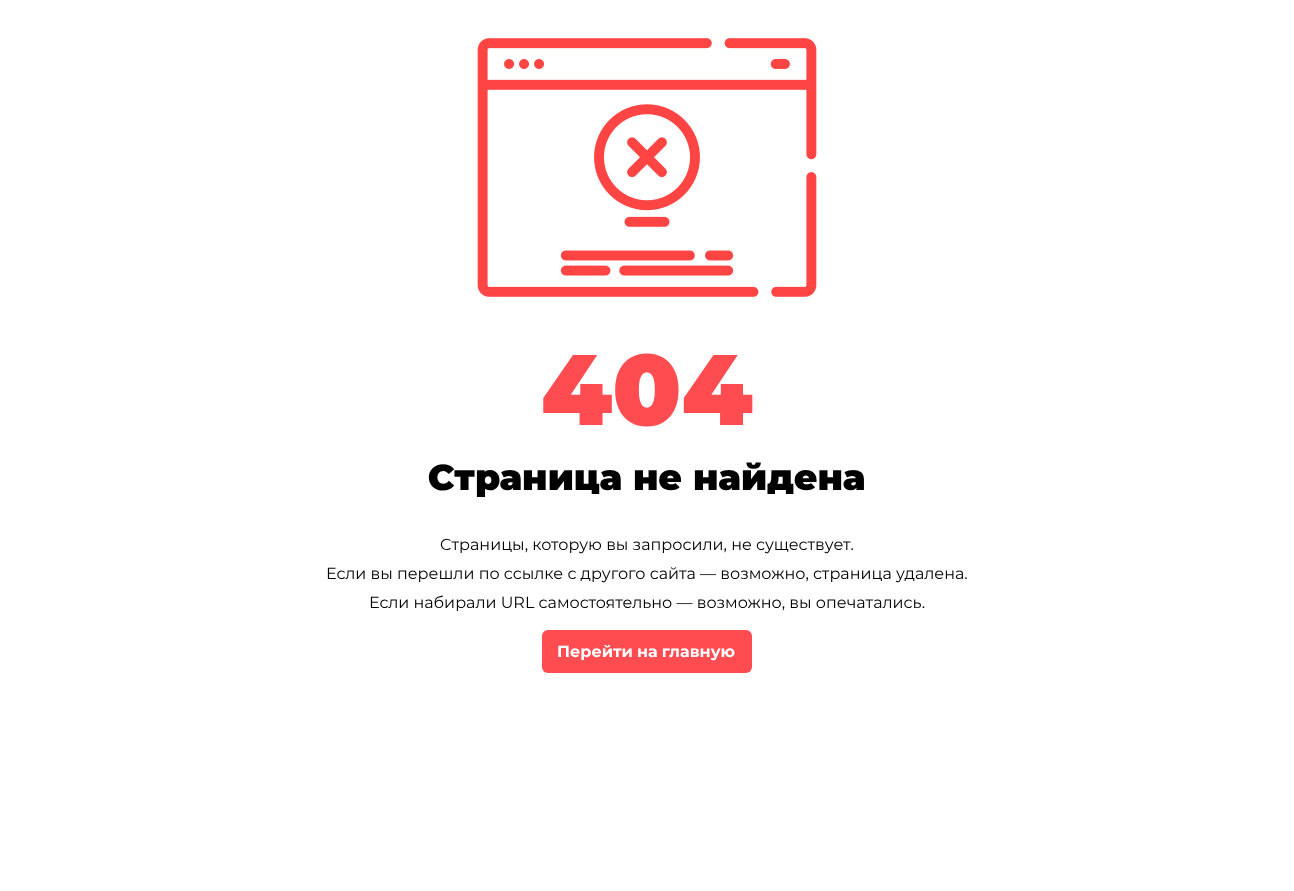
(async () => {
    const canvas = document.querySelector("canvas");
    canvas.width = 1294;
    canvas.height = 891;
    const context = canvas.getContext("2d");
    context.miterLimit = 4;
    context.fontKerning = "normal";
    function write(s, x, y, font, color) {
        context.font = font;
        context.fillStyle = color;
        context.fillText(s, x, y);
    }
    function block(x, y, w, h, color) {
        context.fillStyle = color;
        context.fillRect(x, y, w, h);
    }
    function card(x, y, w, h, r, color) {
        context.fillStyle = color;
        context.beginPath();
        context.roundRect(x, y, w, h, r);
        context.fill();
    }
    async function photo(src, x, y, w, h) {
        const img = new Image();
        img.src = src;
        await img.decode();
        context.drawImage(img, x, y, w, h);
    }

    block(0, 0, 1294, 891, "rgb(255, 255, 255)");
    await photo("media/1.png", 477, 38, 340, 259);
    write("404", 541, 425, "900 100px Montserrat", "rgb(254, 76, 80)");
    write("Страница не найдена", 428, 490, "900 36px Montserrat", "rgb(0, 0, 0)");
    write("Cтраницы, которую вы запросили, не существует.", 440, 550, "16px Montserrat", "rgb(0, 0, 0)");
    write("Если вы перешли по ссылке с другого сайта — возможно, страница удалена.", 326, 579, "16px Montserrat", "rgb(0, 0, 0)");
    write("Если набирали URL самостоятельно — возможно, вы опечатались.", 369, 608, "16px Montserrat", "rgb(0, 0, 0)");
    card(542, 630, 210, 43, 6, "rgb(254, 76, 80)");
    write("Перейти на главную", 557, 657, "bold 16px Montserrat", "rgb(255, 255, 255)");
})();
